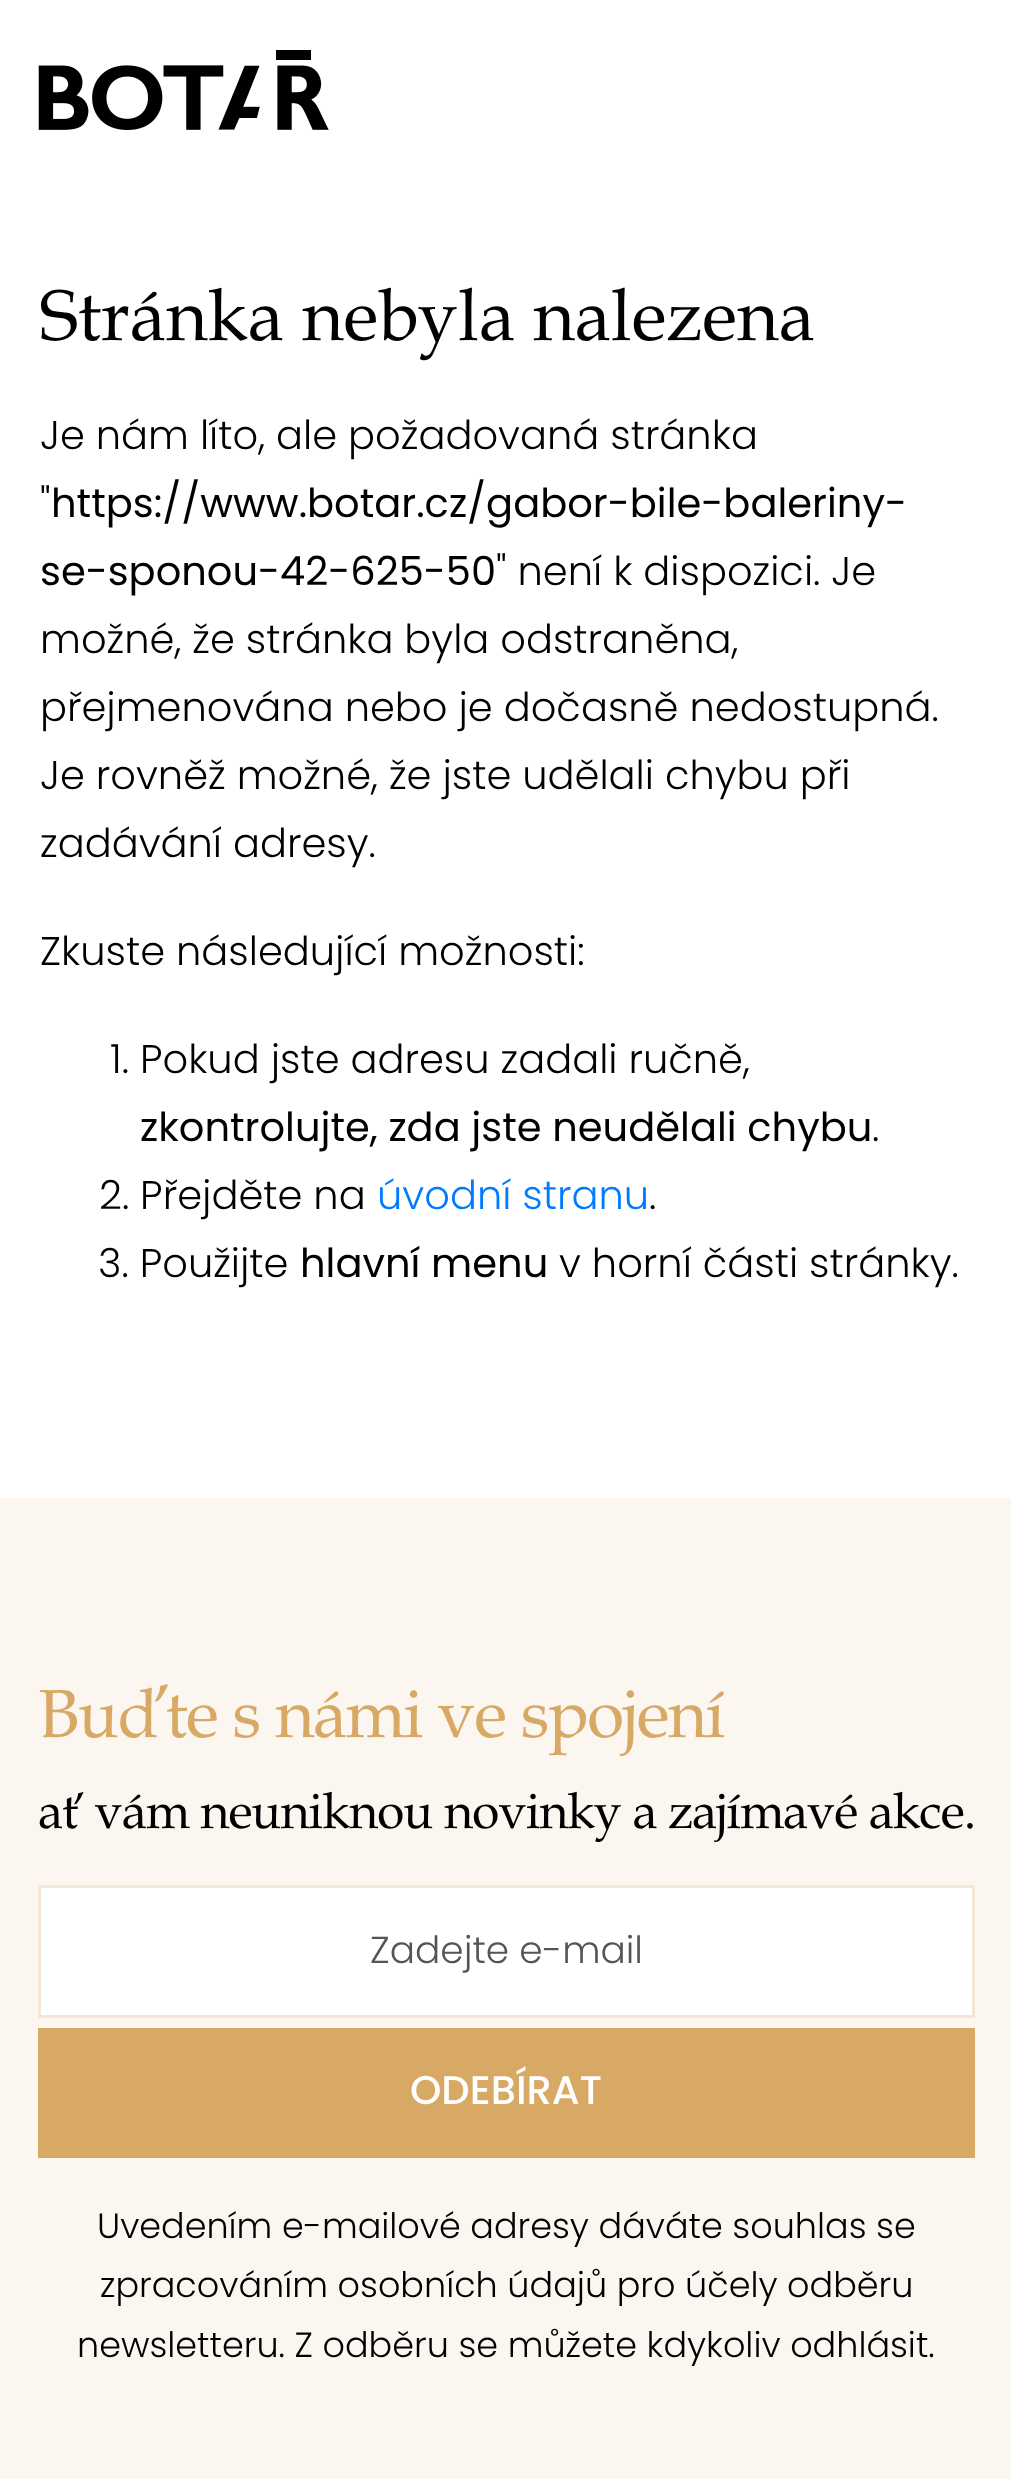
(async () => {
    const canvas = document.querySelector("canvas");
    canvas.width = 1011;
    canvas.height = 2479;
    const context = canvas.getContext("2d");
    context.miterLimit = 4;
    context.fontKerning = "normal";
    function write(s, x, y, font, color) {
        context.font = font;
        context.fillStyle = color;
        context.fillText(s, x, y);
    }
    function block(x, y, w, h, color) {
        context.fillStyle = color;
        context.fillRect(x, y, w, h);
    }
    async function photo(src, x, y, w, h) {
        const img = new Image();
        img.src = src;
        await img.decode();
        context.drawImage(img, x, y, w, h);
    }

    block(0, 0, 1011, 2479, "rgb(255, 255, 255)");
    await photo("media/1.png", 38, 50, 291, 80);
    write("Stránka nebyla nalezena", 40, 340, "72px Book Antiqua", "rgb(0, 0, 0)");
    write("Je nám líto, ale požadovaná stránka", 40, 449, "300 40px Poppins", "rgb(0, 0, 0)");
    write("\"", 40, 517, "300 40px Poppins", "rgb(0, 0, 0)");
    write("https://www.botar.cz/gabor-bile-baleriny-", 51, 517, "40px Poppins", "rgb(0, 0, 0)");
    write("se-sponou-42-625-50", 40, 585, "40px Poppins", "rgb(0, 0, 0)");
    write("\" není k dispozici. Je", 496, 585, "300 40px Poppins", "rgb(0, 0, 0)");
    write("možné, že stránka byla odstraněna,", 40, 653, "300 40px Poppins", "rgb(0, 0, 0)");
    write("přejmenována nebo je dočasně nedostupná.", 40, 721, "300 40px Poppins", "rgb(0, 0, 0)");
    write("Je rovněž možné, že jste udělali chybu při", 40, 789, "300 40px Poppins", "rgb(0, 0, 0)");
    write("zadávání adresy.", 40, 857, "300 40px Poppins", "rgb(0, 0, 0)");
    write("Zkuste následující možnosti:", 40, 965, "300 40px Poppins", "rgb(0, 0, 0)");
    write("1. Pokud jste adresu zadali ručně,", 110, 1073, "300 40px Poppins", "rgb(0, 0, 0)");
    write("zkontrolujte, zda jste neudělali chybu", 140, 1141, "40px Poppins", "rgb(0, 0, 0)");
    write(".", 872, 1141, "300 40px Poppins", "rgb(0, 0, 0)");
    write("2. Přejděte na", 99, 1209, "300 40px Poppins", "rgb(0, 0, 0)");
    write("úvodní stranu", 377, 1209, "300 40px Poppins", "rgb(0, 123, 255)");
    write(".", 649, 1209, "300 40px Poppins", "rgb(0, 0, 0)");
    write("3. Použijte", 98, 1277, "300 40px Poppins", "rgb(0, 0, 0)");
    write("hlavní menu", 300, 1277, "40px Poppins", "rgb(0, 0, 0)");
    write("v horní části stránky.", 559, 1277, "300 40px Poppins", "rgb(0, 0, 0)");
    block(0, 1498, 1011, 981, "rgb(251, 246, 239)");
    context.letterSpacing = "-1.6px";
    write("Buďte s námi ve spojení", 38, 1737, "68px Book Antiqua", "rgb(216, 169, 100)");
    context.letterSpacing = "-1px";
    write("ať vám neuniknou novinky a zajímavé akce.", 38, 1828, "50px Book Antiqua", "rgb(0, 0, 0)");
    context.fillStyle = "rgb(255, 255, 255)";
    context.beginPath();
    context.rect(39.5, 1886.5, 934, 130);
    context.fill();
    context.strokeStyle = "rgb(244, 232, 213)";
    context.lineWidth = 3;
    context.stroke();
    context.letterSpacing = "0px";
    write("Zadejte e-mail", 370, 1963, "300 37.5px Poppins", "rgb(85, 85, 85)");
    block(38, 2028, 937, 130, "rgb(216, 169, 100)");
    write("ODEBÍRAT", 410, 2104, "500 40px Poppins", "rgb(255, 255, 255)");
    write("Uvedením e-mailové adresy dáváte souhlas se", 97, 2238, "300 35px Poppins", "rgb(0, 0, 0)");
    write("zpracováním osobních údajů pro účely odběru", 100, 2297, "300 35px Poppins", "rgb(0, 0, 0)");
    write("newsletteru. Z odběru se můžete kdykoliv odhlásit.", 77, 2357, "300 35px Poppins", "rgb(0, 0, 0)");
})();
